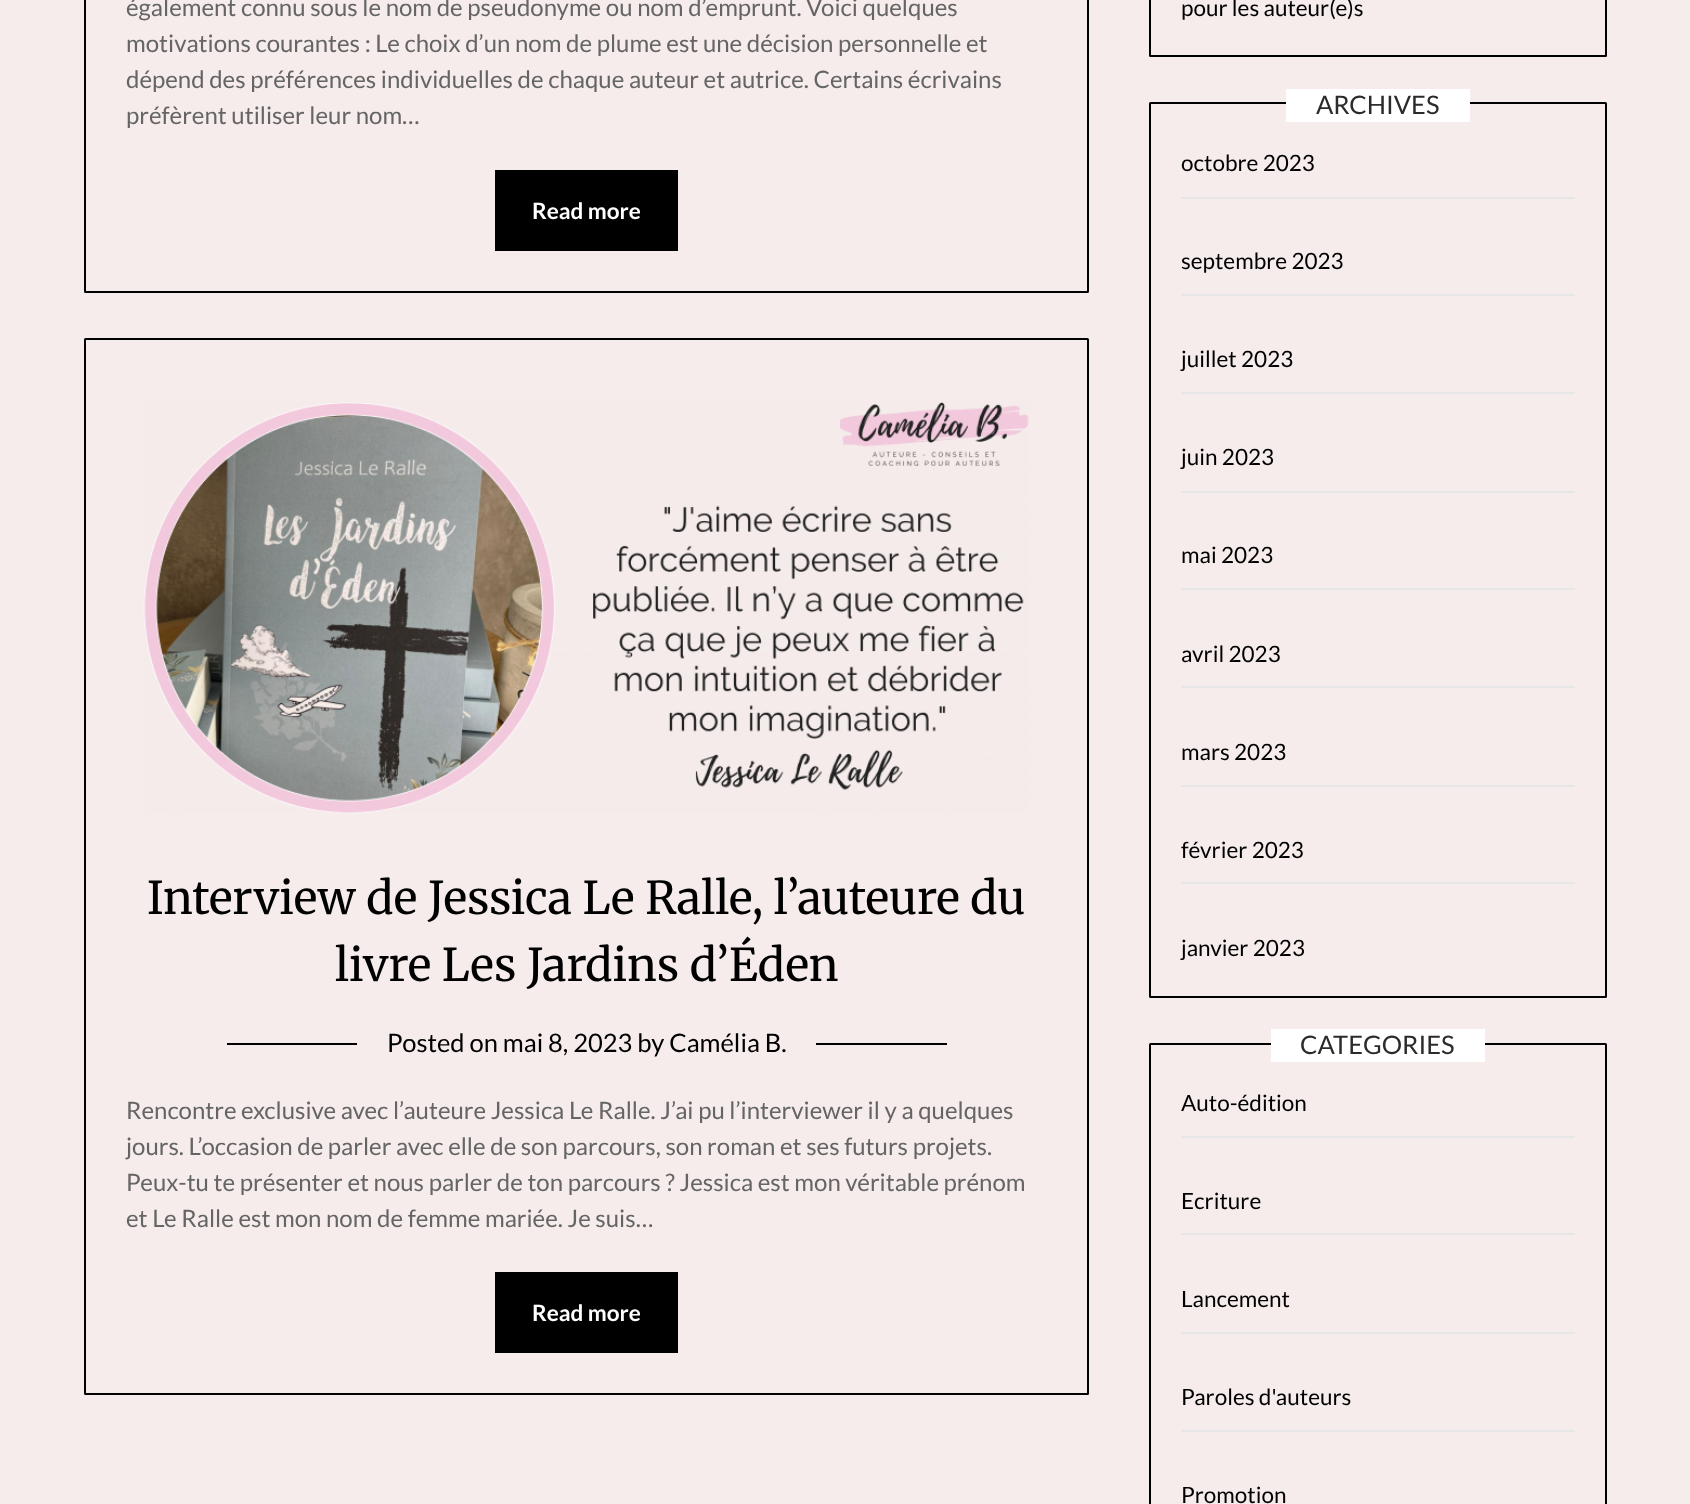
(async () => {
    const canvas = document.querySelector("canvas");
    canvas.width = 1690;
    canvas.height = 1504;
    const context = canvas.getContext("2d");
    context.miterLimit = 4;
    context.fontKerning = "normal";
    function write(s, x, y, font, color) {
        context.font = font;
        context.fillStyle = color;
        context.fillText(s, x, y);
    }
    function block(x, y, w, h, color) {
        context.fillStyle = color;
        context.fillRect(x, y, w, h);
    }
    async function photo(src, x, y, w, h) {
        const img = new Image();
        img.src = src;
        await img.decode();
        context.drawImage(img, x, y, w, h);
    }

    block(0, 0, 1690, 1504, "rgb(245, 236, 235)");
    context.beginPath();
    context.roundRect(85, -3, 1003, 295, 0.5);
    context.strokeStyle = "rgb(0, 0, 0)";
    context.lineWidth = 2;
    context.stroke();
    write("également connu sous le nom de pseudonyme ou nom d’emprunt. Voici quelques", 126, 16, "24px Lato", "rgb(101, 101, 101)");
    write("motivations courantes : Le choix d’un nom de plume est une décision personnelle et", 126, 52, "24px Lato", "rgb(101, 101, 101)");
    write("dépend des préférences individuelles de chaque auteur et autrice. Certains écrivains", 126, 88, "24px Lato", "rgb(101, 101, 101)");
    write("préfèrent utiliser leur nom…", 126, 124, "24px Lato", "rgb(101, 101, 101)");
    block(495, 170, 183, 81, "rgb(0, 0, 0)");
    write("Read more", 532, 219, "bold 22.5px Lato", "rgb(255, 255, 255)");
    context.beginPath();
    context.roundRect(85, 339, 1003, 1055, 0.5);
    context.stroke();
    await photo("media/1.png", 143, 401, 886, 413);
    write("Interview de Jessica Le Ralle, l’auteure du", 147, 914, "45px Merriweather", "rgb(0, 0, 0)");
    write("livre Les Jardins d’Éden", 335, 981, "45px Merriweather", "rgb(0, 0, 0)");
    block(227, 1043, 720, 2, "rgb(0, 0, 0)");
    block(357, 1043, 459, 2, "rgb(245, 236, 235)");
    write("Posted on mai 8, 2023 by Camélia B.", 387, 1052, "25.5px Lato", "rgb(0, 0, 0)");
    write("Rencontre exclusive avec l’auteure Jessica Le Ralle. J’ai pu l’interviewer il y a quelques", 126, 1119, "24px Lato", "rgb(101, 101, 101)");
    write("jours. L’occasion de parler avec elle de son parcours, son roman et ses futurs projets.", 126, 1155, "24px Lato", "rgb(101, 101, 101)");
    write("Peux-tu te présenter et nous parler de ton parcours ? Jessica est mon véritable prénom", 126, 1191, "24px Lato", "rgb(101, 101, 101)");
    write("et Le Ralle est mon nom de femme mariée. Je suis…", 126, 1227, "24px Lato", "rgb(101, 101, 101)");
    block(495, 1272, 183, 81, "rgb(0, 0, 0)");
    write("Read more", 532, 1321, "bold 22.5px Lato", "rgb(255, 255, 255)");
    context.beginPath();
    context.roundRect(1150, -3, 456, 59, 0.5);
    context.stroke();
    write("pour les auteur(e)s", 1181, 16, "22.5px Lato", "rgb(0, 0, 0)");
    context.beginPath();
    context.roundRect(1150, 103, 456, 894, 0.5);
    context.stroke();
    block(1286, 89, 184, 33, "rgb(255, 255, 255)");
    write("ARCHIVES", 1316, 114, "25.5px Lato", "rgb(43, 43, 43)");
    block(1181, 197, 394, 2, "rgb(230, 230, 230)");
    write("octobre 2023", 1181, 171, "22.5px Lato", "rgb(0, 0, 0)");
    block(1181, 294, 394, 2, "rgb(230, 230, 230)");
    write("septembre 2023", 1181, 269, "22.5px Lato", "rgb(0, 0, 0)");
    block(1181, 392, 394, 2, "rgb(230, 230, 230)");
    write("juillet 2023", 1181, 367, "22.5px Lato", "rgb(0, 0, 0)");
    block(1181, 491, 394, 2, "rgb(230, 230, 230)");
    write("juin 2023", 1181, 465, "22.5px Lato", "rgb(0, 0, 0)");
    block(1181, 588, 394, 2, "rgb(230, 230, 230)");
    write("mai 2023", 1181, 563, "22.5px Lato", "rgb(0, 0, 0)");
    block(1181, 686, 394, 2, "rgb(230, 230, 230)");
    write("avril 2023", 1181, 662, "22.5px Lato", "rgb(0, 0, 0)");
    block(1181, 785, 394, 2, "rgb(230, 230, 230)");
    write("mars 2023", 1181, 760, "22.5px Lato", "rgb(0, 0, 0)");
    block(1181, 882, 394, 2, "rgb(230, 230, 230)");
    write("février 2023", 1181, 858, "22.5px Lato", "rgb(0, 0, 0)");
    write("janvier 2023", 1181, 956, "22.5px Lato", "rgb(0, 0, 0)");
    context.beginPath();
    context.roundRect(1150, 1044, 456, 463, 0.5);
    context.stroke();
    block(1271, 1029, 214, 33, "rgb(255, 255, 255)");
    write("CATEGORIES", 1300, 1054, "25.5px Lato", "rgb(43, 43, 43)");
    block(1181, 1136, 394, 2, "rgb(230, 230, 230)");
    write("Auto-édition", 1181, 1111, "22.5px Lato", "rgb(0, 0, 0)");
    block(1181, 1233, 394, 2, "rgb(230, 230, 230)");
    write("Ecriture", 1181, 1209, "22.5px Lato", "rgb(0, 0, 0)");
    block(1181, 1332, 394, 2, "rgb(230, 230, 230)");
    write("Lancement", 1181, 1307, "22.5px Lato", "rgb(0, 0, 0)");
    block(1181, 1430, 394, 2, "rgb(230, 230, 230)");
    write("Paroles d'auteurs", 1181, 1405, "22.5px Lato", "rgb(0, 0, 0)");
    write("Promotion", 1181, 1503, "22.5px Lato", "rgb(0, 0, 0)");
})();
